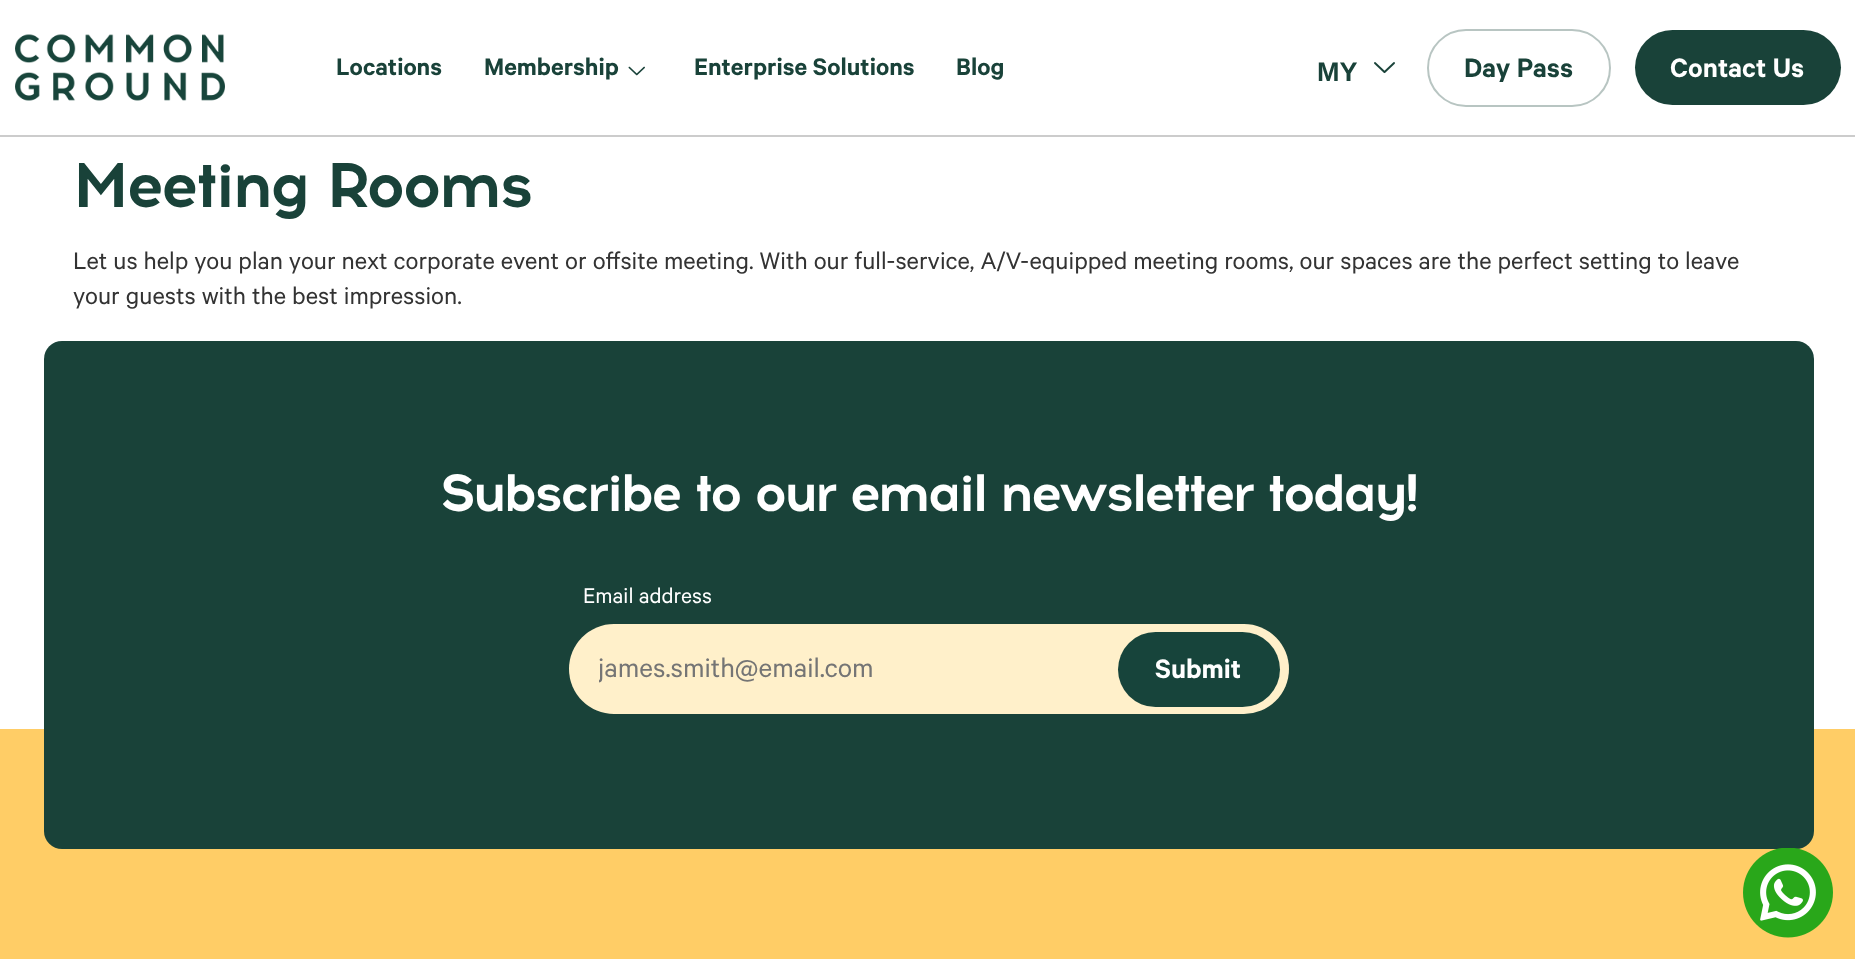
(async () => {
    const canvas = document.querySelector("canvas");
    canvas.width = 1855;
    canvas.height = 959;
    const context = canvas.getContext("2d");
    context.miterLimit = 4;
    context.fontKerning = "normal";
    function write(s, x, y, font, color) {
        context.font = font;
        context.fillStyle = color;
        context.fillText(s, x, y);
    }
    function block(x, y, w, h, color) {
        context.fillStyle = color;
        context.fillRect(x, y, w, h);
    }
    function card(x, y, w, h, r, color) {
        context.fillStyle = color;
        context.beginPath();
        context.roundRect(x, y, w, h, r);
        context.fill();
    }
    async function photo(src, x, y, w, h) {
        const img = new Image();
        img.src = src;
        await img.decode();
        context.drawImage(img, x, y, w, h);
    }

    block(0, 0, 1855, 959, "rgb(255, 255, 255)");
    block(0, 135, 1855, 2, "rgb(204, 204, 204)");
    await photo("media/1.png", 15, 34, 210, 67);
    write("Locations", 336, 75, "600 27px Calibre", "rgb(25, 66, 57)");
    write("Membership", 484, 75, "600 27px Calibre", "rgb(25, 66, 57)");
    await photo("media/2.png", 628, 66, 17, 10);
    write("Enterprise Solutions", 694, 75, "600 27px Calibre", "rgb(25, 66, 57)");
    write("Blog", 956, 75, "600 27px Calibre", "rgb(25, 66, 57)");
    write("MY", 1317, 81, "bold 27px Liberation Sans", "rgb(25, 66, 57)");
    await photo("media/3.png", 1374, 62, 21, 12);
    context.beginPath();
    context.roundRect(1428, 30, 182, 76, 38);
    context.strokeStyle = "rgb(184, 197, 194)";
    context.lineWidth = 2;
    context.stroke();
    write("Day Pass", 1464, 77, "600 30px Calibre", "rgb(25, 66, 57)");
    card(1635, 30, 206, 75, 37.5, "rgb(25, 66, 57)");
    write("Contact Us", 1670, 77, "600 30px Calibre", "rgb(255, 255, 255)");
    context.letterSpacing = "-3px";
    write("Meeting Rooms", 73, 207, "bold 63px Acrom", "rgb(25, 66, 57)");
    context.letterSpacing = "0px";
    write("Let us help you plan your next corporate event or offsite meeting. With our full-service, A/V-equipped meeting rooms, our spaces are the perfect setting to leave", 73, 269, "27px Calibre", "rgb(51, 51, 51)");
    write("your guests with the best impression.", 73, 304, "27px Calibre", "rgb(51, 51, 51)");
    block(0, 729, 1855, 230, "rgb(255, 205, 102)");
    card(44, 341, 1770, 508, 18, "rgb(25, 66, 57)");
    context.letterSpacing = "-3px";
    write("Subscribe to our email newsletter today!", 440, 511, "bold 52.5px Acrom", "rgb(255, 255, 255)");
    context.letterSpacing = "0px";
    write("Email address", 583, 603, "24px Calibre", "rgb(255, 255, 255)");
    card(569, 624, 720, 90, 45, "rgb(255, 240, 202)");
    context.save();
    context.beginPath();
    context.rect(599, 656, 660, 36);
    context.clip();
    write("james.smith@email.com", 598, 677, "30px Calibre", "rgb(117, 117, 117)");
    context.restore();
    card(1118, 632, 162, 75, 37.5, "rgb(23, 68, 59)");
    write("Submit", 1155, 678, "600 30px Calibre", "rgb(255, 255, 255)");
    await photo("media/4.png", 1743, 848, 90, 90);
})();
